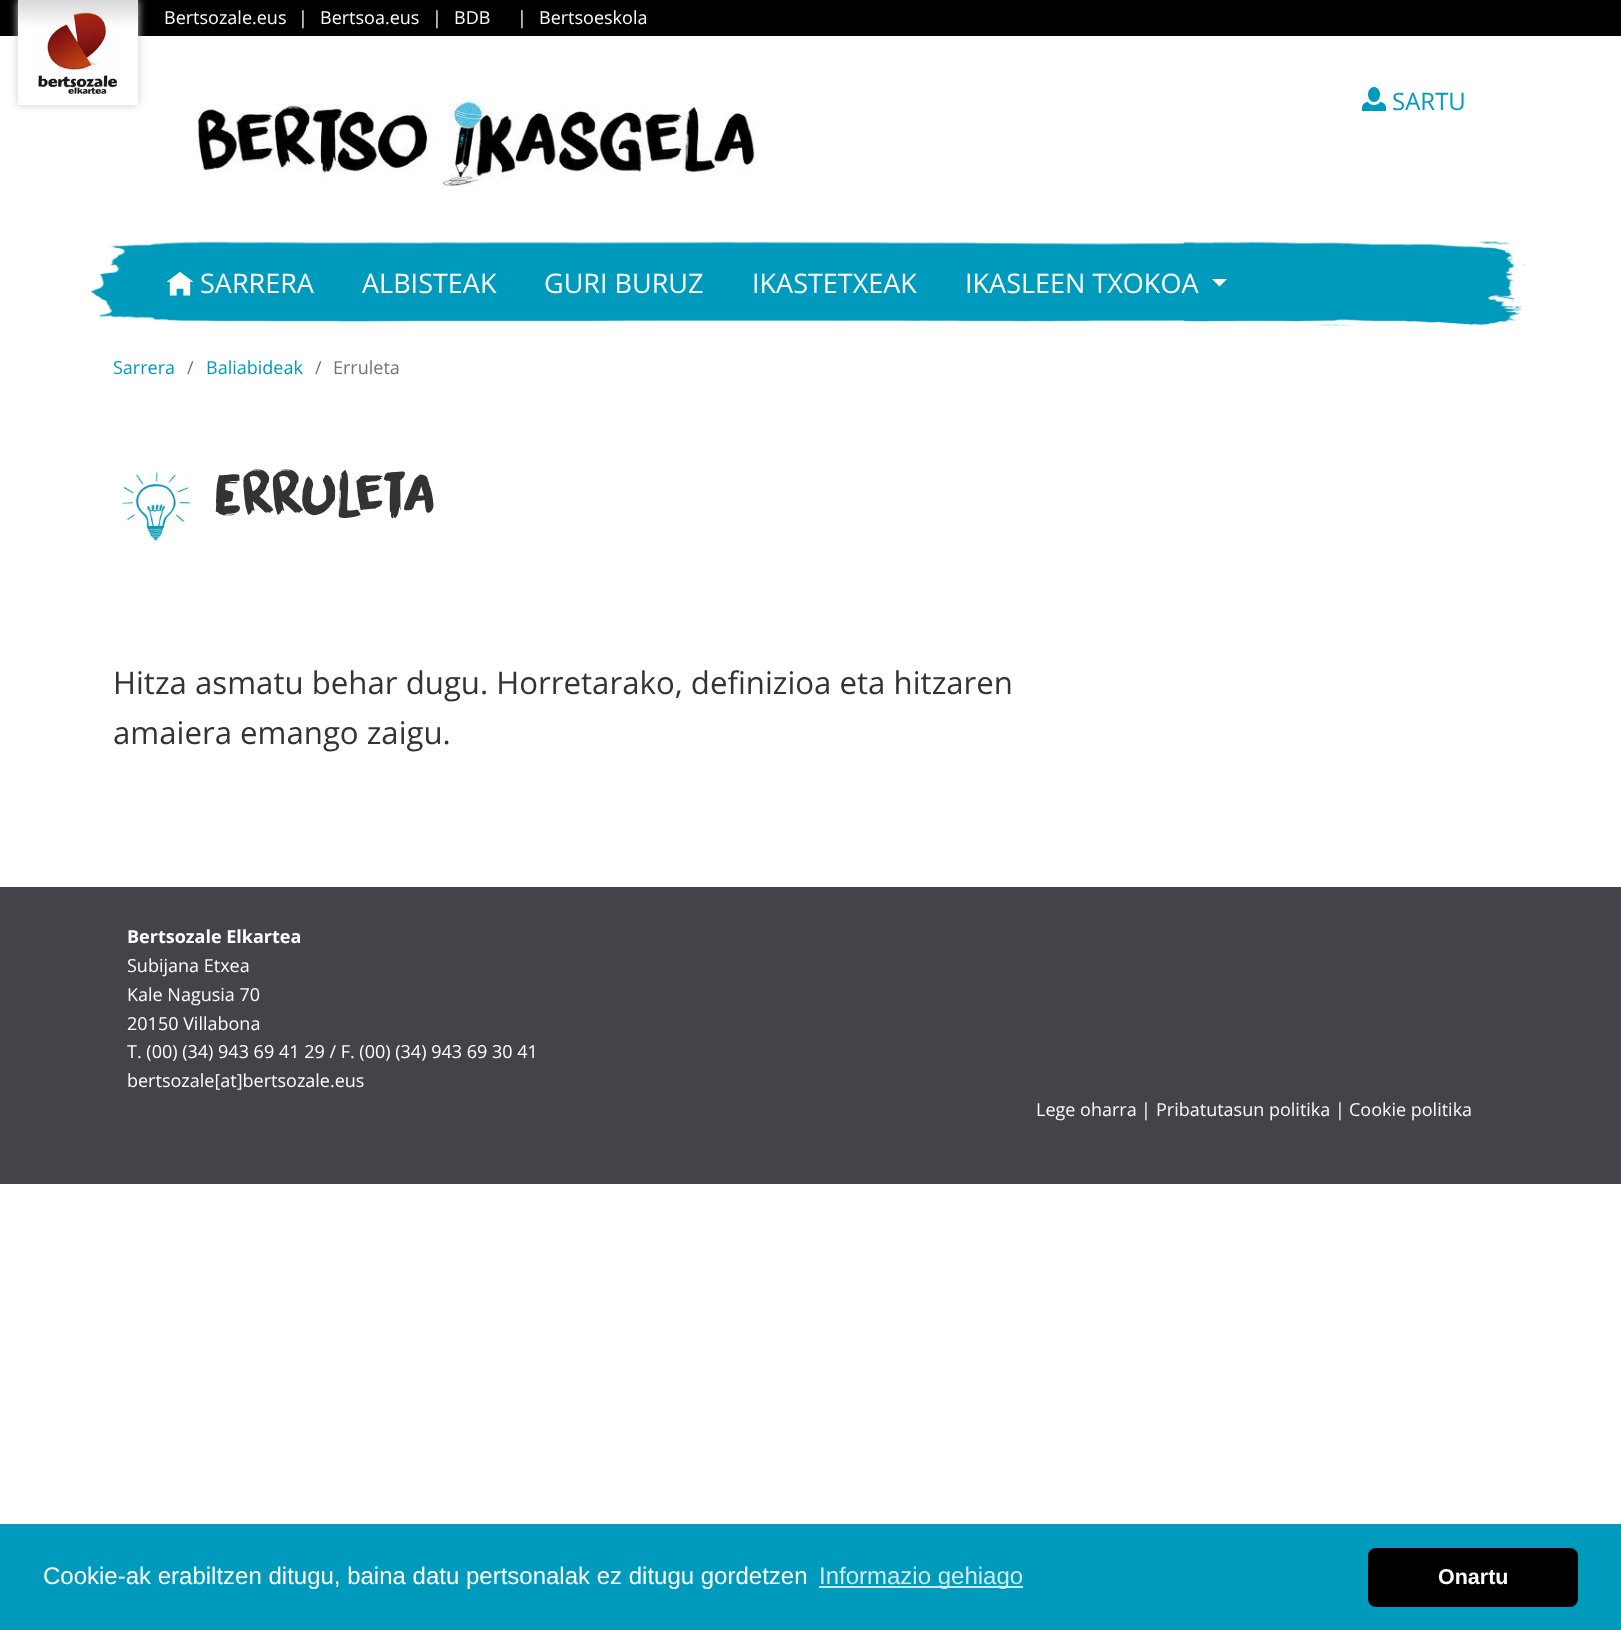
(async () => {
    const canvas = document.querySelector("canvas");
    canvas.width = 1621;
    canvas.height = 1630;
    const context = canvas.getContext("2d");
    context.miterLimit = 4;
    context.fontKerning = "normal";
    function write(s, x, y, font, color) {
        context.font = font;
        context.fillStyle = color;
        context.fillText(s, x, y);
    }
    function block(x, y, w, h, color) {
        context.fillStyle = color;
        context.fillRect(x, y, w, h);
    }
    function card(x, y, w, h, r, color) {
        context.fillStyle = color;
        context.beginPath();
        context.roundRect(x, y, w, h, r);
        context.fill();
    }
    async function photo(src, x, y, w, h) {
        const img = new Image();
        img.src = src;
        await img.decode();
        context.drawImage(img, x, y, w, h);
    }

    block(0, 0, 1621, 1630, "rgb(255, 255, 255)");
    block(0, 0, 1621, 36, "rgb(0, 0, 0)");
    context.save();
    context.beginPath();
    context.moveTo(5, 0);
    context.lineTo(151, 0);
    context.lineTo(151, 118);
    context.lineTo(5, 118);
    context.closePath();
    context.moveTo(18, 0);
    context.lineTo(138, 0);
    context.lineTo(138, 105);
    context.lineTo(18, 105);
    context.closePath();
    context.clip("evenodd");
    context.fillStyle = "rgb(204, 204, 204)";
    context.filter = "blur(4px)";
    context.beginPath();
    context.rect(18, 0, 120, 105);
    context.fill();
    context.filter = "none";
    context.restore();
    await photo("media/1.png", 18, 0, 120, 94);
    write("Bertsozale.eus", 164, 24, "18px Open Sans", "rgb(255, 255, 255)");
    write("|", 298, 24, "18px Open Sans", "rgb(255, 255, 255)");
    write("Bertsoa.eus", 320, 24, "18px Open Sans", "rgb(255, 255, 255)");
    write("|", 432, 24, "18px Open Sans", "rgb(255, 255, 255)");
    write("BDB", 454, 24, "18px Open Sans", "rgb(255, 255, 255)");
    write("|", 517, 24, "18px Open Sans", "rgb(255, 255, 255)");
    write("Bertsoeskola", 539, 24, "18px Open Sans", "rgb(255, 255, 255)");
    await photo("media/2.png", 193, 96, 563, 91);
    await photo("media/3.png", 1362, 87, 24, 24);
    write("SARTU", 1392, 110, "24px Open Sans", "rgb(0, 154, 188)");
    await photo("media/4.png", 91, 241, 1435, 86);
    await photo("media/5.png", 166, 272, 28, 24);
    write("SARRERA", 200, 293, "27px Open Sans", "rgb(255, 255, 255)");
    write("ALBISTEAK", 362, 293, "27px Open Sans", "rgb(255, 255, 255)");
    write("GURI BURUZ", 544, 293, "27px Open Sans", "rgb(255, 255, 255)");
    write("IKASTETXEAK", 752, 293, "27px Open Sans", "rgb(255, 255, 255)");
    write("IKASLEEN TXOKOA", 965, 293, "27px Open Sans", "rgb(255, 255, 255)");
    context.beginPath();
    context.moveTo(1212, 279);
    context.lineTo(1227, 279);
    context.lineTo(1219.5, 286.5);
    context.closePath();
    context.fill();
    write("Sarrera", 113, 374, "18px Open Sans", "rgb(0, 154, 188)");
    write("/", 187, 374, "18px Open Sans", "rgb(108, 117, 125)");
    write("Baliabideak", 206, 374, "18px Open Sans", "rgb(0, 154, 188)");
    write("/", 315, 374, "18px Open Sans", "rgb(108, 117, 125)");
    write("Erruleta", 333, 374, "18px Open Sans", "rgb(108, 117, 125)");
    await photo("media/6.png", 120, 469, 73, 73);
    write("Erruleta", 214, 518, "57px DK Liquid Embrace", "rgb(51, 51, 51)");
    write("Hitza asmatu behar dugu. Horretarako, definizioa eta hitzaren", 113, 694, "31.2px Open Sans", "rgb(51, 51, 51)");
    write("amaiera emango zaigu.", 113, 744, "31.2px Open Sans", "rgb(51, 51, 51)");
    block(0, 887, 1621, 297, "rgb(66, 68, 73)");
    write("Bertsozale Elkartea", 127, 943, "bold 18px Open Sans", "rgb(255, 255, 255)");
    write("Subijana Etxea", 127, 972, "18px Open Sans", "rgb(255, 255, 255)");
    write("Kale Nagusia 70", 127, 1001, "18px Open Sans", "rgb(255, 255, 255)");
    write("20150 Villabona", 127, 1030, "18px Open Sans", "rgb(255, 255, 255)");
    write("T. (00) (34) 943 69 41 29 / F. (00) (34) 943 69 30 41", 127, 1058, "18px Open Sans", "rgb(255, 255, 255)");
    write("bertsozale[at]bertsozale.eus", 127, 1087, "18px Open Sans", "rgb(255, 255, 255)");
    write("Lege oharra", 1036, 1116, "18px Open Sans", "rgb(248, 249, 250)");
    write("|", 1141, 1116, "18px Open Sans", "rgb(255, 255, 255)");
    write("Pribatutasun politika", 1156, 1116, "18px Open Sans", "rgb(248, 249, 250)");
    write("|", 1335, 1116, "18px Open Sans", "rgb(255, 255, 255)");
    write("Cookie politika", 1349, 1116, "18px Open Sans", "rgb(248, 249, 250)");
    block(0, 1524, 1621, 106, "rgb(0, 154, 188)");
    write("Cookie-ak erabiltzen ditugu, baina datu pertsonalak ez ditugu gordetzen", 43, 1584, "24px Liberation Sans", "rgb(255, 255, 255)");
    block(819, 1586, 204, 2, "rgb(204, 235, 242)");
    write("Informazio gehiago", 819, 1584, "24px Liberation Sans", "rgb(204, 235, 242)");
    card(1368, 1548, 210, 59, 8, "rgb(0, 0, 0)");
    write("Onartu", 1438, 1584, "bold 21.5px Liberation Sans", "rgb(255, 255, 255)");
})();
